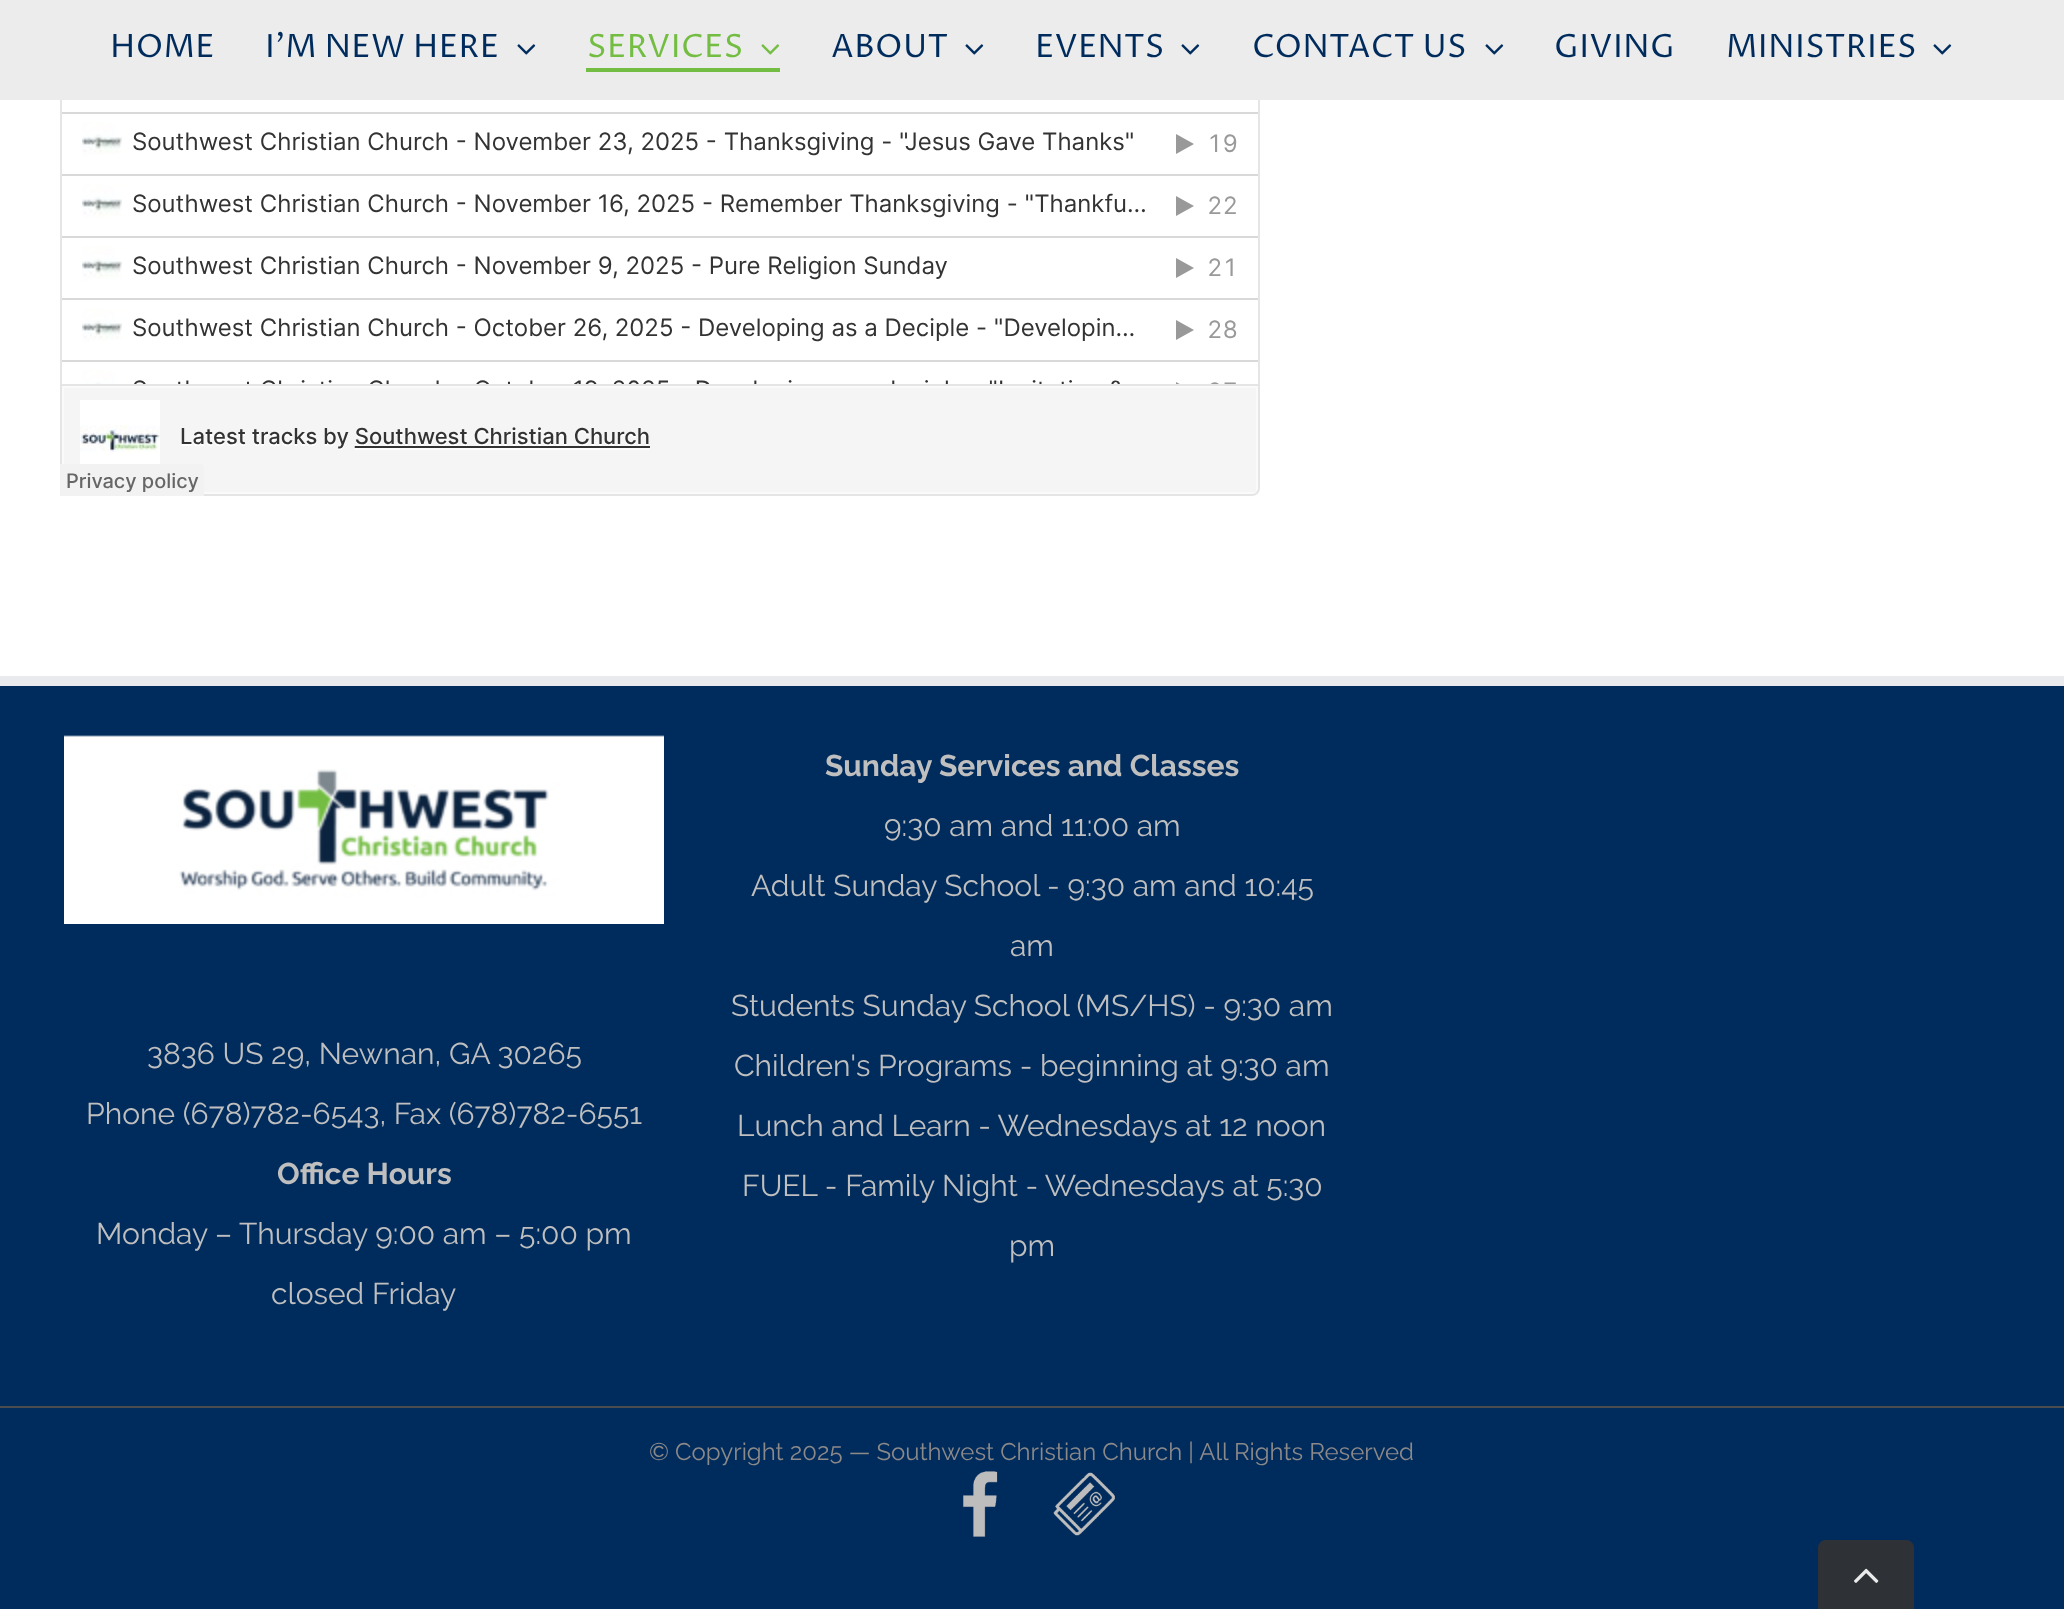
(async () => {
    const canvas = document.querySelector("canvas");
    canvas.width = 2064;
    canvas.height = 1609;
    const context = canvas.getContext("2d");
    context.miterLimit = 4;
    context.fontKerning = "normal";
    function write(s, x, y, font, color) {
        context.font = font;
        context.fillStyle = color;
        context.fillText(s, x, y);
    }
    function block(x, y, w, h, color) {
        context.fillStyle = color;
        context.fillRect(x, y, w, h);
    }
    async function photo(src, x, y, w, h) {
        const img = new Image();
        img.src = src;
        await img.decode();
        context.drawImage(img, x, y, w, h);
    }

    block(0, 0, 2064, 1609, "rgb(255, 255, 255)");
    block(0, 0, 2064, 100, "rgb(236, 236, 236)");
    context.letterSpacing = "0.5px";
    write("HOME", 110, 57, "32px Proza Libre", "rgb(0, 44, 93)");
    write("I’M NEW HERE", 265, 57, "32px Proza Libre", "rgb(0, 44, 93)");
    await photo("media/1.png", 517, 44, 19, 11);
    write("SERVICES", 587, 57, "32px Proza Libre", "rgb(116, 189, 67)");
    await photo("media/2.png", 761, 44, 19, 11);
    block(586, 68, 194, 4, "rgb(116, 189, 67)");
    write("ABOUT", 831, 57, "32px Proza Libre", "rgb(0, 44, 93)");
    await photo("media/1.png", 965, 44, 19, 11);
    write("EVENTS", 1035, 57, "32px Proza Libre", "rgb(0, 44, 93)");
    await photo("media/1.png", 1181, 44, 19, 11);
    write("CONTACT US", 1252, 57, "32px Proza Libre", "rgb(0, 44, 93)");
    await photo("media/1.png", 1485, 44, 19, 11);
    write("GIVING", 1554, 57, "32px Proza Libre", "rgb(0, 44, 93)");
    write("MINISTRIES", 1726, 57, "32px Proza Libre", "rgb(0, 44, 93)");
    await photo("media/1.png", 1933, 44, 19, 11);
    await photo("media/3.png", 60, 100, 1200, 396);
    block(0, 686, 2064, 720, "rgb(0, 44, 93)");
    block(0, 676, 2064, 10, "rgb(233, 234, 238)");
    await photo("media/4.png", 64, 735, 600, 189);
    context.letterSpacing = "0px";
    write("3836 US 29, Newnan, GA 30265", 147, 1064, "30px Raleway", "rgb(191, 191, 191)");
    write("Phone (678)782-6543, Fax (678)782-6551", 86, 1124, "30px Raleway", "rgb(191, 191, 191)");
    write("Office Hours", 277, 1184, "bold 30px Raleway", "rgb(191, 191, 191)");
    write("Monday – Thursday 9:00 am – 5:00 pm", 96, 1244, "30px Raleway", "rgb(191, 191, 191)");
    write("closed Friday", 271, 1304, "30px Raleway", "rgb(191, 191, 191)");
    write("Sunday Services and Classes", 825, 776, "bold 30px Raleway", "rgb(191, 191, 191)");
    write("9:30 am and 11:00 am", 884, 836, "30px Raleway", "rgb(191, 191, 191)");
    write("Adult Sunday School - 9:30 am and 10:45", 751, 896, "30px Raleway", "rgb(191, 191, 191)");
    write("am", 1010, 956, "30px Raleway", "rgb(191, 191, 191)");
    write("Students Sunday School (MS/HS) - 9:30 am", 731, 1016, "30px Raleway", "rgb(191, 191, 191)");
    write("Children's Programs - beginning at 9:30 am", 734, 1076, "30px Raleway", "rgb(191, 191, 191)");
    write("Lunch and Learn - Wednesdays at 12 noon", 737, 1136, "30px Raleway", "rgb(191, 191, 191)");
    write("FUEL - Family Night - Wednesdays at 5:30", 742, 1196, "30px Raleway", "rgb(191, 191, 191)");
    write("pm", 1009, 1256, "30px Raleway", "rgb(191, 191, 191)");
    block(0, 1408, 2064, 201, "rgb(0, 44, 93)");
    block(0, 1406, 2064, 2, "rgb(75, 76, 77)");
    write("© Copyright 2025 — Southwest Christian Church | All Rights Reserved", 649, 1460, "24px Raleway", "rgb(140, 137, 137)");
    await photo("media/5.png", 963, 1471, 35, 66);
    await photo("media/6.png", 1053, 1472, 62, 64);
    context.fillStyle = "rgb(46, 50, 55)";
    context.beginPath();
    context.moveTo(1826, 1540);
    context.lineTo(1906, 1540);
    context.bezierCurveTo(1910.5, 1540, 1914, 1543.5, 1914, 1548);
    context.lineTo(1914, 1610);
    context.lineTo(1818, 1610);
    context.lineTo(1818, 1548);
    context.bezierCurveTo(1818, 1543.5, 1821.5, 1540, 1826, 1540);
    context.closePath();
    context.fill();
    await photo("media/7.png", 1854, 1568, 25, 15);
})();
